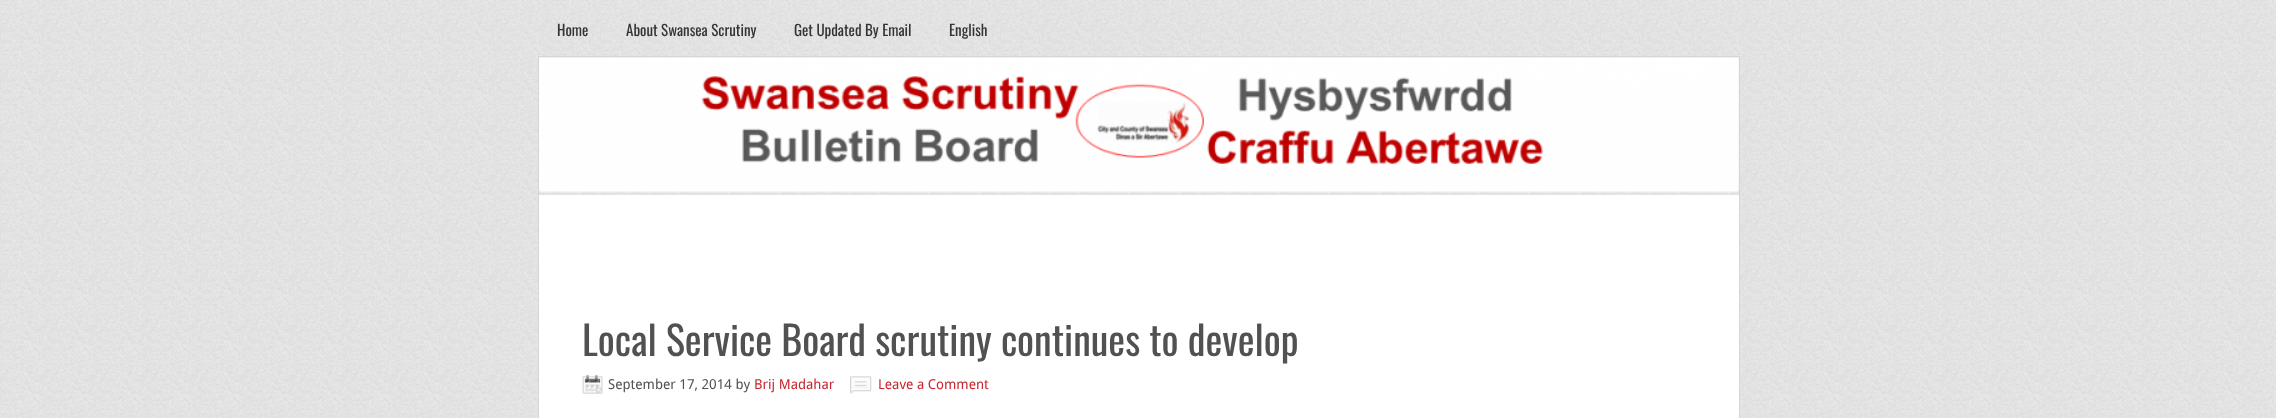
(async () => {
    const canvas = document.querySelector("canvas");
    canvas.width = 2276;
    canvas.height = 418;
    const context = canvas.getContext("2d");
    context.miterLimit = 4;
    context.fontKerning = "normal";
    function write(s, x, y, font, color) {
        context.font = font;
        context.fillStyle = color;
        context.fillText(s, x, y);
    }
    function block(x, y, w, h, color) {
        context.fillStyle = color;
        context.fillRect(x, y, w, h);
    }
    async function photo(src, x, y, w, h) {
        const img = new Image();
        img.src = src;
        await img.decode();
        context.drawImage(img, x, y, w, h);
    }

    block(0, 0, 2276, 418, "rgb(255, 255, 255)");
    await photo("media/1.png", 0, 0, 2276, 418);
    write("Home", 557, 36, "15px Oswald", "rgb(51, 51, 51)");
    write("About Swansea Scrutiny", 626, 36, "15px Oswald", "rgb(51, 51, 51)");
    write("Get Updated By Email", 794, 36, "15px Oswald", "rgb(51, 51, 51)");
    write("English", 949, 36, "15px Oswald", "rgb(51, 51, 51)");
    await photo("media/2.png", 539, 57, 1200, 136);
    block(538, 56, 1202, 1, "rgb(213, 213, 213)");
    block(1739, 56, 1, 362, "rgb(213, 213, 213)");
    block(538, 56, 1, 362, "rgb(213, 213, 213)");
    block(539, 195, 1200, 223, "rgb(255, 255, 255)");
    write("Local Service Board scrutiny continues to develop", 582, 356, "40px Oswald", "rgb(81, 81, 81)");
    await photo("media/3.png", 582, 374, 21, 20);
    write("September 17, 2014 by", 608, 389, "13.75px Droid Sans", "rgb(81, 81, 81)");
    write("Brij Madahar", 754, 389, "13.75px Droid Sans", "rgb(199, 39, 48)");
    await photo("media/4.png", 850, 376, 22, 18);
    write("Leave a Comment", 878, 389, "13.75px Droid Sans", "rgb(199, 39, 48)");
})();
